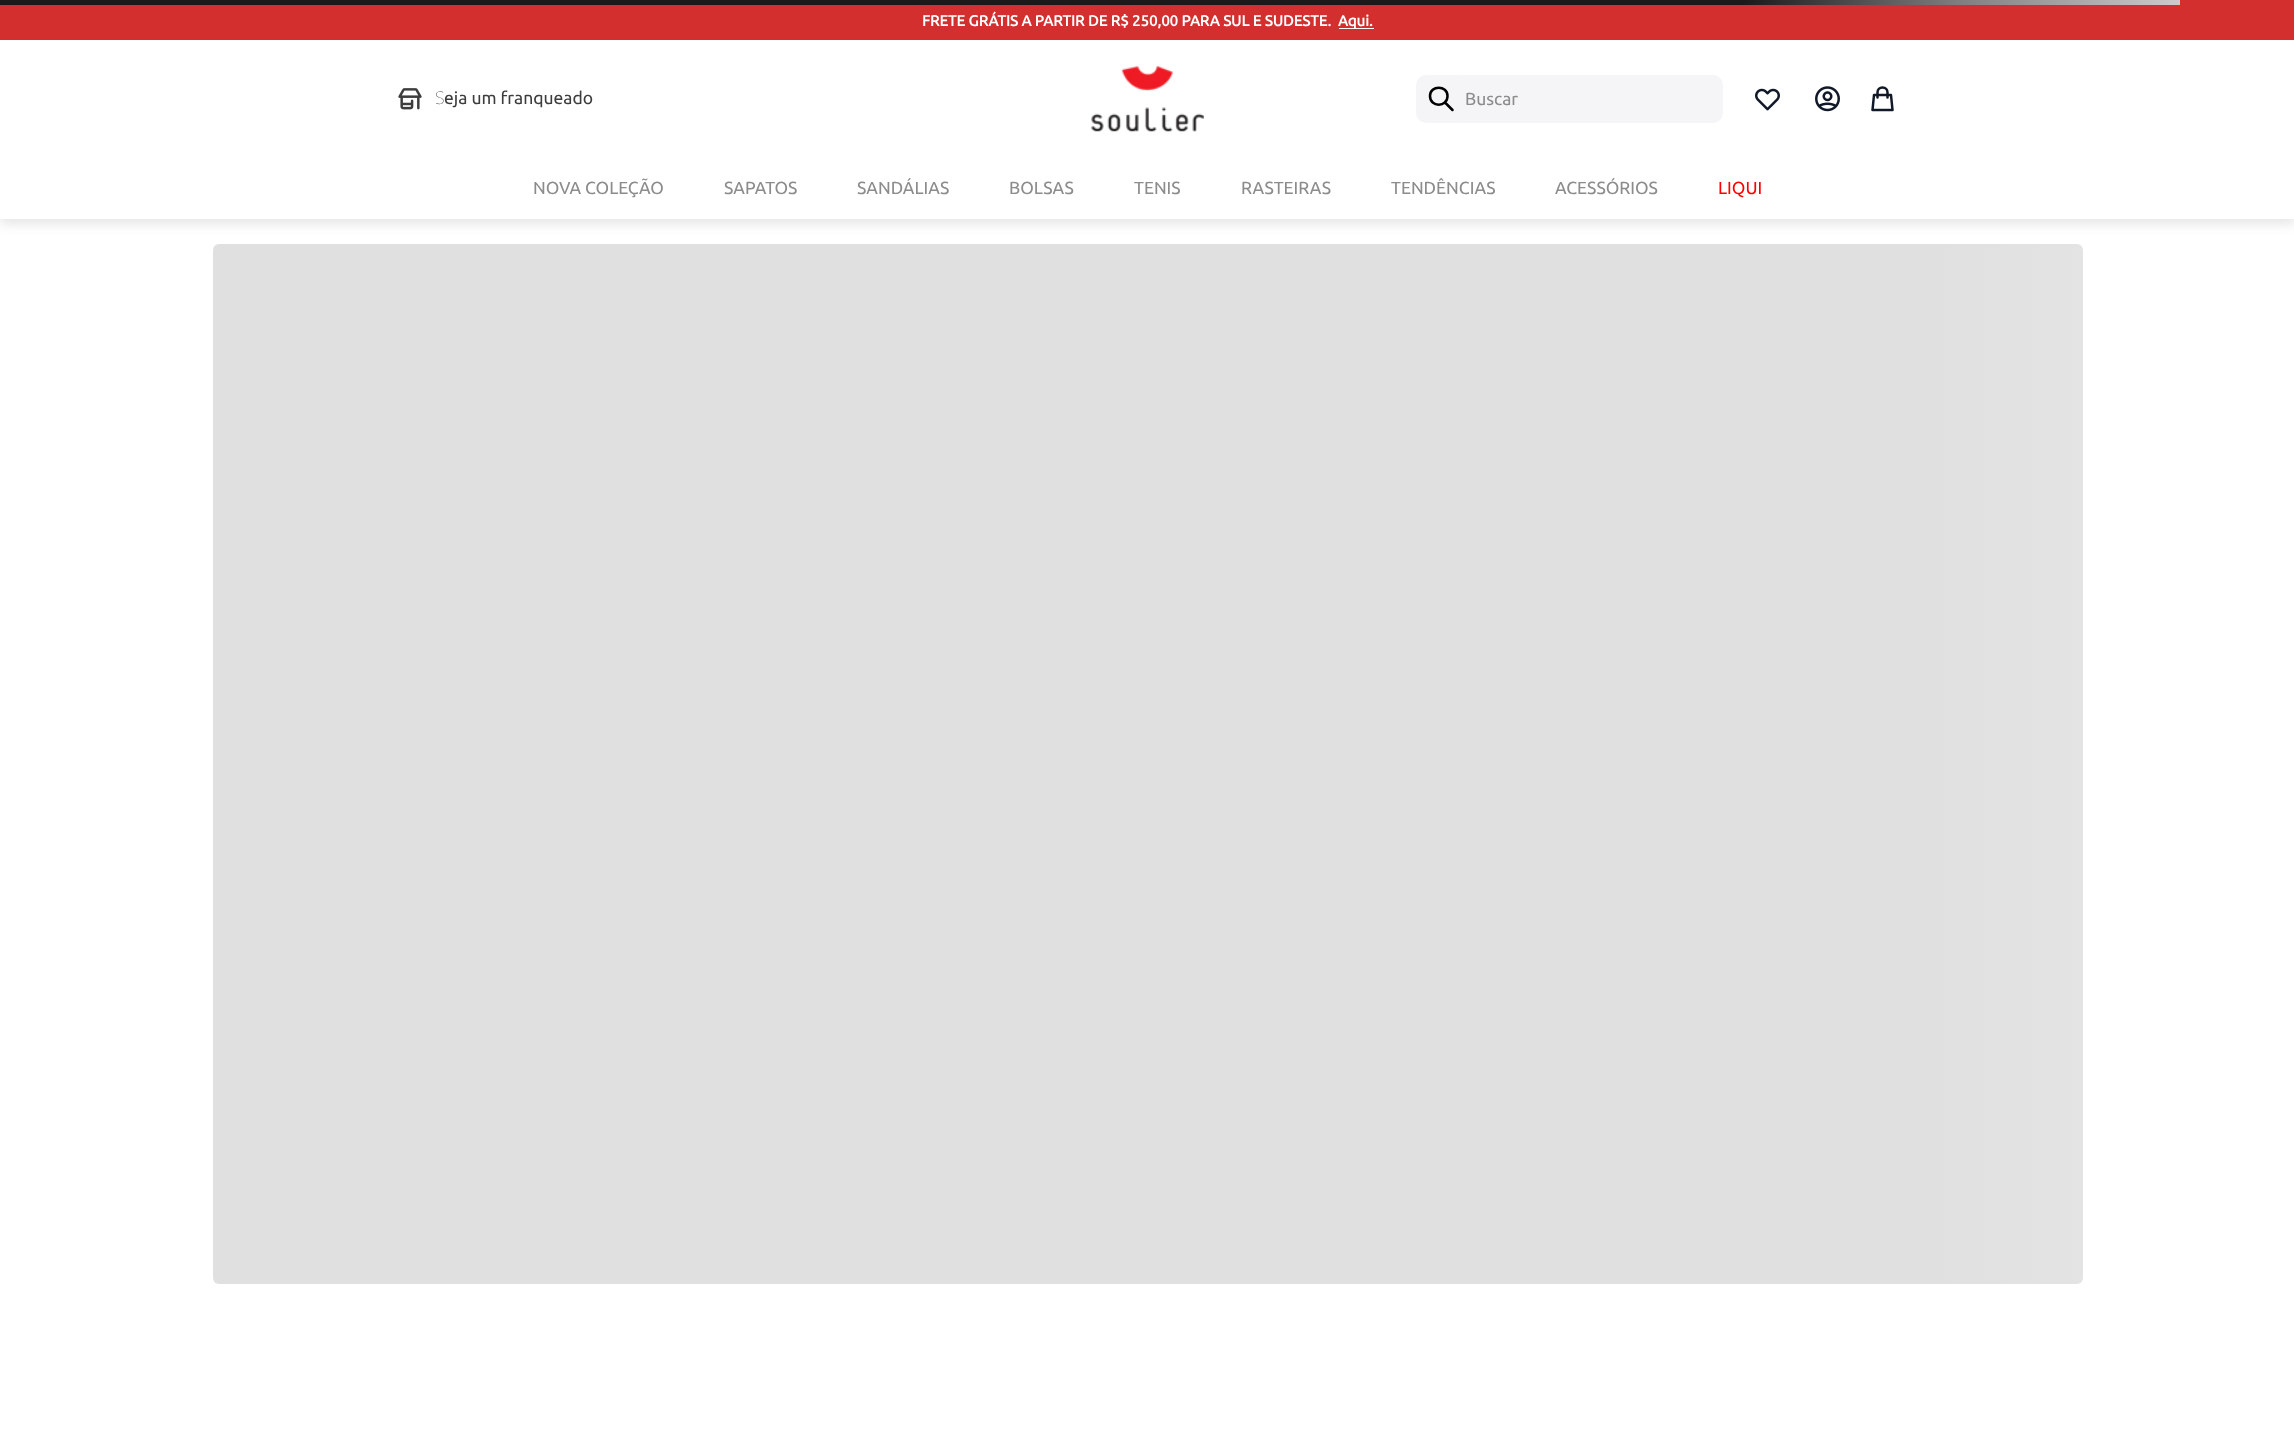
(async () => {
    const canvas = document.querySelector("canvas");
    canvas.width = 2294;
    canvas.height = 1456;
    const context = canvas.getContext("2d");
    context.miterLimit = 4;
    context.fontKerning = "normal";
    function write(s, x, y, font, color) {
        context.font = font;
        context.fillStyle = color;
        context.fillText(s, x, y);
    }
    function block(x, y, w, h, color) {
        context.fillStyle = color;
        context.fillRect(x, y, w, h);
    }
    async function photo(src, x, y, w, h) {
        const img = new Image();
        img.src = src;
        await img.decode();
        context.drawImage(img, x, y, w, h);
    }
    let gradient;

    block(0, 0, 2294, 1456, "rgb(255, 255, 255)");
    context.fillStyle = "rgba(0, 0, 0, 0.1)";
    context.filter = "blur(6px)";
    context.beginPath();
    context.rect(0, 5, 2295, 219);
    context.fill();
    context.filter = "none";
    block(0, 0, 2294, 40, "rgb(211, 47, 47)");
    gradient = context.createLinearGradient(0, 2.5, 2180, 2.5);
    gradient.addColorStop(0.8, "rgb(26, 26, 26)");
    gradient.addColorStop(0.9, "rgb(128, 128, 128)");
    gradient.addColorStop(1, "rgb(204, 204, 204)");
    context.fillStyle = gradient;
    context.fillRect(0, 0, 2180, 5);
    block(0, 40, 2294, 179, "rgb(255, 255, 255)");
    write("FRETE GRÁTIS A PARTIR DE R$ 250,00 PARA SUL E SUDESTE.", 922, 26, "bold 15px Ubuntu", "rgb(255, 255, 255)");
    block(1339, 28, 35, 1, "rgb(255, 255, 255)");
    write("Aqui.", 1338, 26, "bold 15px Ubuntu", "rgb(255, 255, 255)");
    await photo("media/1.png", 398, 88, 24, 22);
    write("S", 435, 104, "100 17.5px Noto Sans", "rgb(61, 61, 61)");
    write("eja um franqueado", 444, 104, "17.5px Ubuntu", "rgb(61, 61, 61)");
    await photo("media/2.png", 1091, 66, 113, 66);
    context.fillStyle = "rgb(245, 245, 247)";
    context.beginPath();
    context.roundRect(1416, 75, 47, 48, [10, 0, 0, 10]);
    context.fill();
    context.beginPath();
    context.moveTo(1452.5, 110);
    context.lineTo(1445, 102.5);
    context.moveTo(1447.5, 96);
    context.bezierCurveTo(1447.5, 107.5, 1430, 107.5, 1430, 96);
    context.bezierCurveTo(1430, 85, 1447.5, 85, 1447.5, 96);
    context.closePath();
    context.strokeStyle = "rgb(0, 0, 0)";
    context.lineWidth = 2.5;
    context.lineCap = "round";
    context.lineJoin = "round";
    context.stroke();
    context.beginPath();
    context.roundRect(1463, 75, 260, 48, [1, 10, 10, 1]);
    context.fill();
    write("Buscar", 1465, 105, "17.5px Ubuntu", "rgb(140, 140, 140)");
    await photo("media/3.png", 1755, 88, 25, 23);
    await photo("media/4.png", 1815, 86, 25, 26);
    context.beginPath();
    context.moveTo(1887.5, 97.5);
    context.lineTo(1887.5, 92.5);
    context.bezierCurveTo(1887.5, 89.5, 1885.5, 87.5, 1882.5, 87.5);
    context.bezierCurveTo(1879.5, 87.5, 1877.5, 89.5, 1877.5, 92.5);
    context.lineTo(1877.5, 97.5);
    context.moveTo(1874, 95);
    context.lineTo(1891, 95);
    context.lineTo(1892.5, 110);
    context.lineTo(1872.5, 110);
    context.closePath();
    context.strokeStyle = "rgb(17, 24, 39)";
    context.stroke();
    write("NOVA COLEÇÃO", 533, 194, "17.5px Ubuntu", "rgb(140, 140, 140)");
    write("SAPATOS", 724, 194, "17.5px Ubuntu", "rgb(140, 140, 140)");
    write("SANDÁLIAS", 857, 194, "17.5px Ubuntu", "rgb(140, 140, 140)");
    write("BOLSAS", 1009, 194, "17.5px Ubuntu", "rgb(140, 140, 140)");
    write("TENIS", 1134, 194, "17.5px Ubuntu", "rgb(140, 140, 140)");
    write("RASTEIRAS", 1241, 194, "17.5px Ubuntu", "rgb(140, 140, 140)");
    write("TENDÊNCIAS", 1391, 194, "17.5px Ubuntu", "rgb(140, 140, 140)");
    write("ACESSÓRIOS", 1555, 194, "17.5px Ubuntu", "rgb(140, 140, 140)");
    write("LIQUI", 1718, 194, "17.5px Ubuntu", "rgb(255, 0, 1)");
    gradient = context.createLinearGradient(213, 764, 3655, 764);
    gradient.addColorStop(0, "rgb(224, 224, 224)");
    gradient.addColorStop(0.5, "rgb(224, 224, 224)");
    gradient.addColorStop(0.6, "rgb(232, 232, 232)");
    gradient.addColorStop(0.65, "rgb(224, 224, 224)");
    gradient.addColorStop(1, "rgb(224, 224, 224)");
    context.fillStyle = gradient;
    context.beginPath();
    context.roundRect(213, 244, 1870, 1040, 6);
    context.fill();
})();
